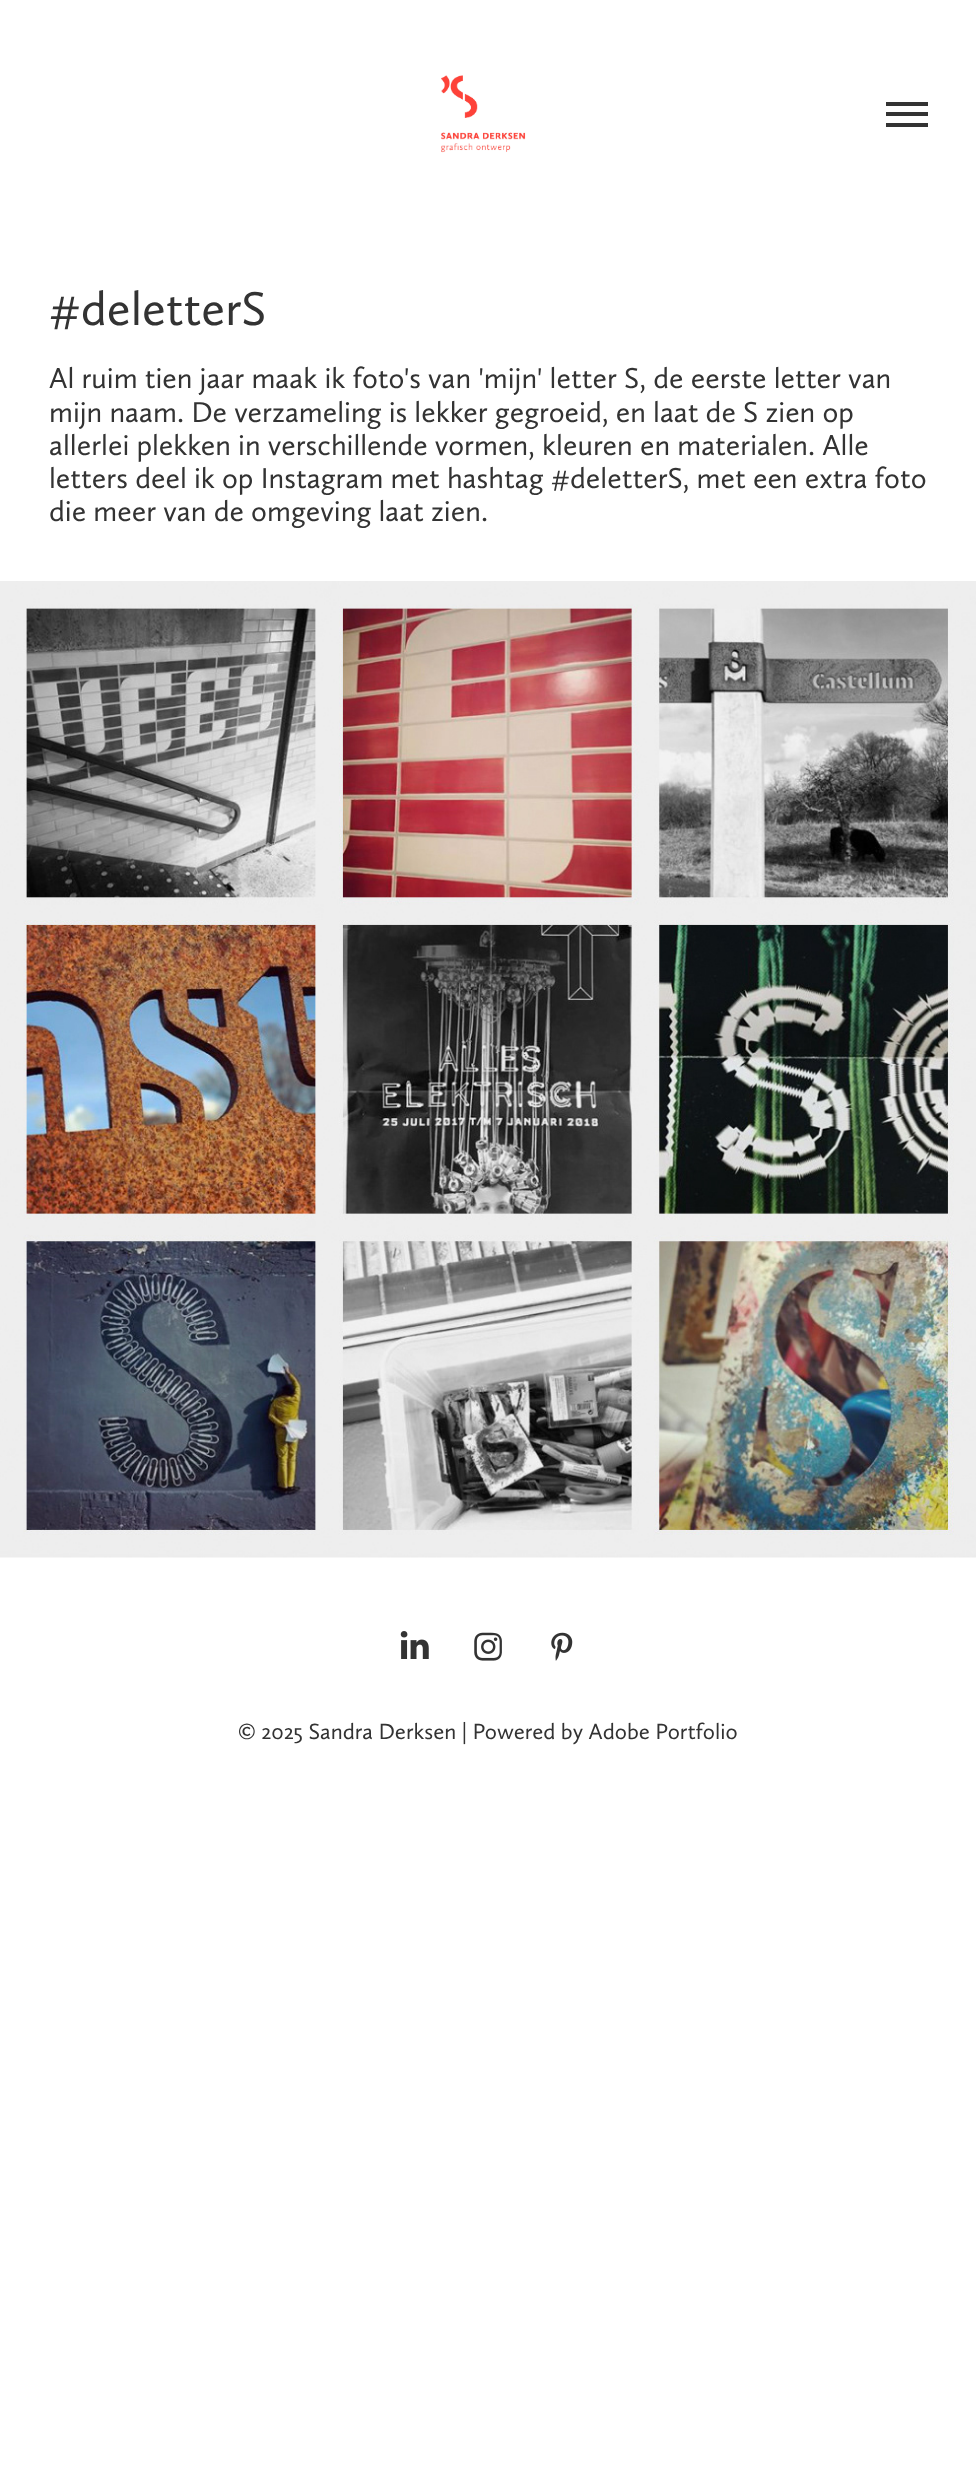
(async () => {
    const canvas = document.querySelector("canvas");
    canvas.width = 976;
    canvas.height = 2471;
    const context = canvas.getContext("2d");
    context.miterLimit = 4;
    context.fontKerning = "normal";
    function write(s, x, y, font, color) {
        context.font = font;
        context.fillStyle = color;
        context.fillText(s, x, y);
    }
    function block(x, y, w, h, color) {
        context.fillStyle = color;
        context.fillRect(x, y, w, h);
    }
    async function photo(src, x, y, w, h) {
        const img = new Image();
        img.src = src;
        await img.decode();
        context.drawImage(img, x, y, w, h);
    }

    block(0, 0, 976, 2471, "rgb(255, 255, 255)");
    await photo("media/1.png", 441, 75, 85, 78);
    block(886, 102, 42, 4, "rgb(51, 51, 51)");
    block(886, 112, 42, 4, "rgb(51, 51, 51)");
    block(886, 123, 42, 4, "rgb(51, 51, 51)");
    write("#deletterS", 49, 325, "49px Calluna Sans", "rgb(51, 51, 51)");
    write("Al ruim tien jaar maak ik foto's van 'mijn' letter S, de eerste letter van", 49, 388, "29.75px Calluna Sans", "rgb(51, 51, 51)");
    write("mijn naam. De verzameling is lekker gegroeid, en laat de S zien op", 49, 422, "29.75px Calluna Sans", "rgb(51, 51, 51)");
    write("allerlei plekken in verschillende vormen, kleuren en materialen. Alle", 49, 455, "29.75px Calluna Sans", "rgb(51, 51, 51)");
    write("letters deel ik op Instagram met hashtag #deletterS, met een extra foto", 49, 488, "29.75px Calluna Sans", "rgb(51, 51, 51)");
    write("die meer van de omgeving laat zien.", 49, 521, "29.75px Calluna Sans", "rgb(51, 51, 51)");
    await photo("media/2.png", 0, 581, 976, 977);
    await photo("media/3.png", 400, 1631, 29, 28);
    await photo("media/4.png", 474, 1632, 28, 29);
    await photo("media/5.png", 551, 1632, 22, 29);
    write("© 2025 Sandra Derksen | Powered by Adobe Portfolio", 238, 1739, "22.75px Calluna Sans", "rgb(51, 51, 51)");
})();
